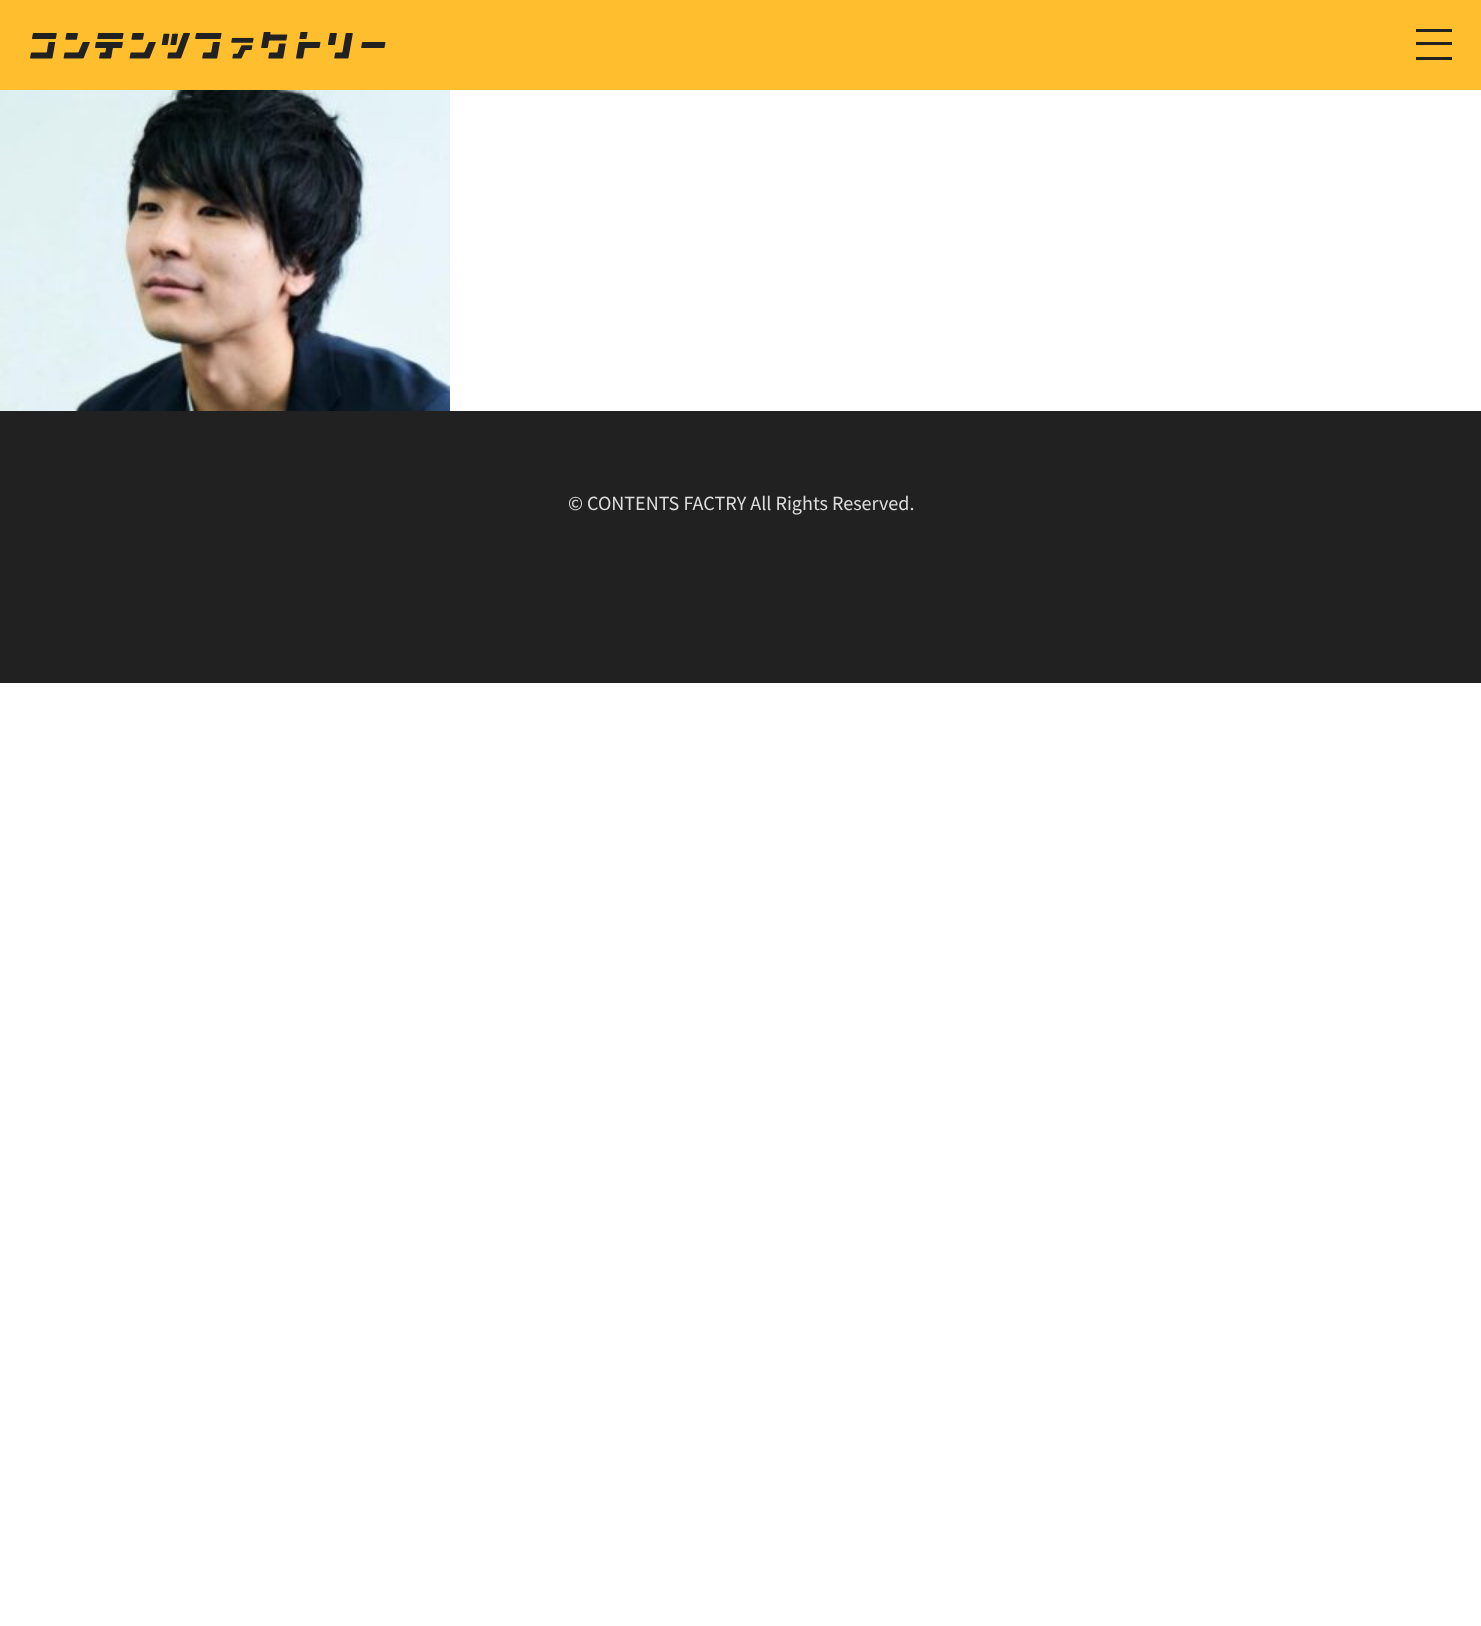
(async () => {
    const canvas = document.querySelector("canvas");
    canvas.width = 1481;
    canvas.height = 1626;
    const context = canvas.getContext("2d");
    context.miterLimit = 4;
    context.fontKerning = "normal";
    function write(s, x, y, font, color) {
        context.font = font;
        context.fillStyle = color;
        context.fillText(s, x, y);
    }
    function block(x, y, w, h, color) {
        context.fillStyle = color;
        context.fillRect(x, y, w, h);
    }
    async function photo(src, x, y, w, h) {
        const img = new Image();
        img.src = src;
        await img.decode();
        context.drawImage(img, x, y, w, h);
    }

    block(0, 0, 1481, 1626, "rgb(255, 255, 255)");
    block(0, 0, 1481, 90, "rgb(255, 190, 46)");
    await photo("media/1.png", 30, 32, 356, 27);
    block(1416, 29, 36, 3, "rgb(33, 33, 33)");
    block(1416, 42, 36, 3, "rgb(33, 33, 33)");
    block(1416, 57, 36, 3, "rgb(33, 33, 33)");
    await photo("media/2.png", 0, 90, 450, 321);
    block(0, 411, 1481, 272, "rgb(33, 33, 33)");
    write("© CONTENTS FACTRY All Rights Reserved.", 568, 510, "18px Noto Sans JP", "rgb(221, 221, 221)");
})();
